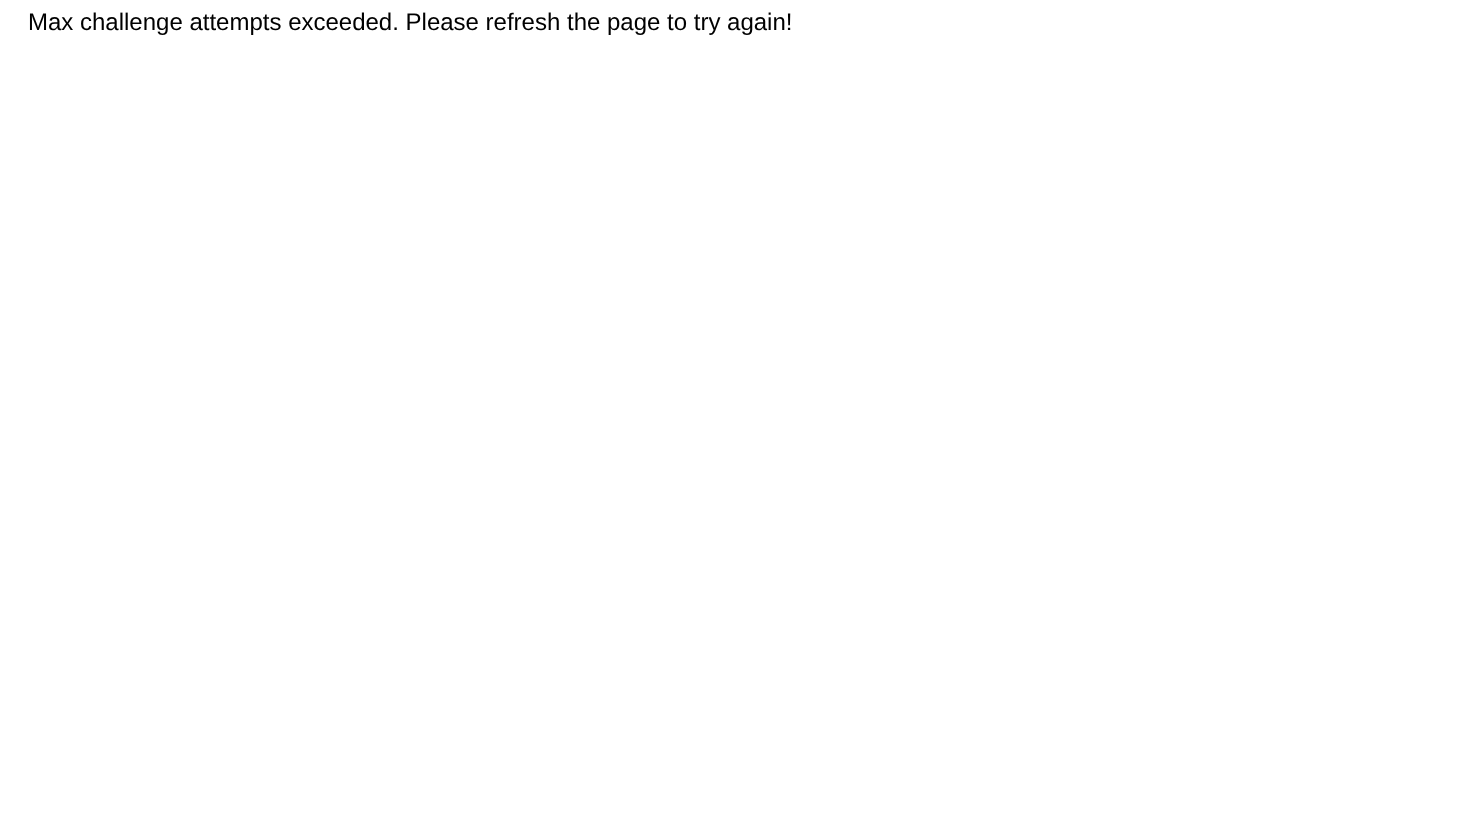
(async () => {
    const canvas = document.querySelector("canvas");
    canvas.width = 1461;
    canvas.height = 818;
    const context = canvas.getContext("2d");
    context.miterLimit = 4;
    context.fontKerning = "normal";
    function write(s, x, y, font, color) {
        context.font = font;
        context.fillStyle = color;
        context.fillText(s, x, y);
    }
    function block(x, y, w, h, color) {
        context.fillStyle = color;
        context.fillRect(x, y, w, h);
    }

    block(0, 0, 1461, 818, "rgb(255, 255, 255)");
    write("Max challenge attempts exceeded. Please refresh the page to try again!", 28, 30, "24px Liberation Sans", "rgb(0, 0, 0)");
})();
